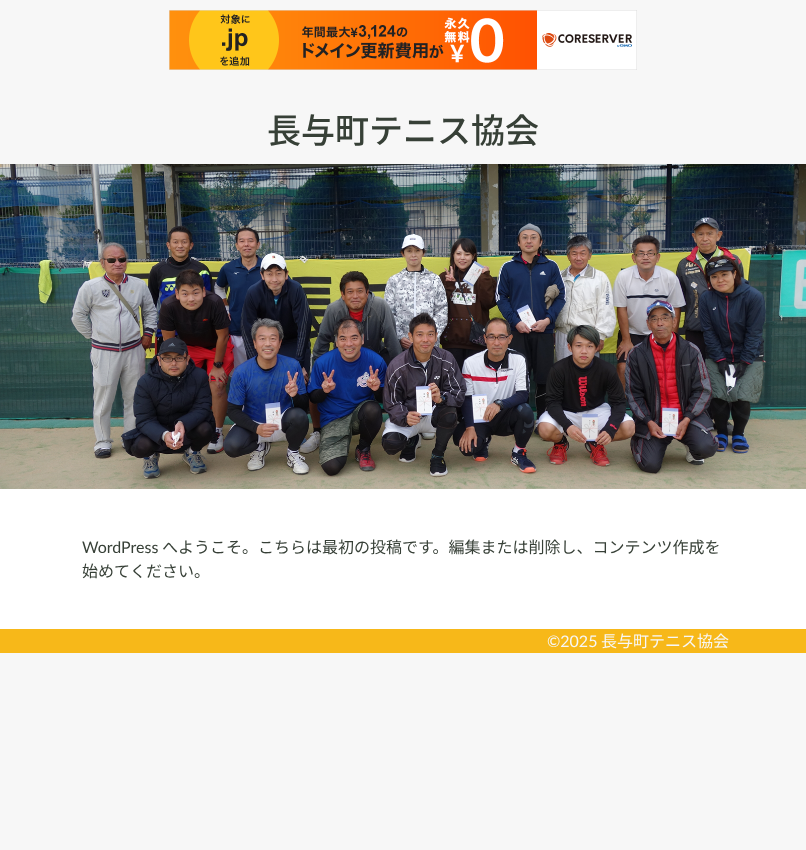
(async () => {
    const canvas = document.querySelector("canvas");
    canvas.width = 806;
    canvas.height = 850;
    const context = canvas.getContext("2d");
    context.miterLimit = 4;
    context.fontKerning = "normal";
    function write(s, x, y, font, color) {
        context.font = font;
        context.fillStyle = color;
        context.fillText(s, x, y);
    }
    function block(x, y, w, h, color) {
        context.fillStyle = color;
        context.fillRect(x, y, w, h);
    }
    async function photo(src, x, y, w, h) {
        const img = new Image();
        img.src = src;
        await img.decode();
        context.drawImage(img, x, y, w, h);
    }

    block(0, 0, 806, 850, "rgb(247, 247, 247)");
    await photo("media/1.png", 169, 10, 468, 60);
    write("長与町テニス協会", 267, 143, "500 34px Noto Sans JP", "rgb(55, 64, 55)");
    await photo("media/2.png", 0, 164, 806, 325);
    block(0, 489, 806, 140, "rgb(255, 255, 255)");
    write("WordPress", 82, 553, "16px Lato", "rgb(55, 64, 55)");
    write("へようこそ。こちらは最初の投稿です。編集または削除し、コンテンツ作成を", 162, 553, "16px Noto Sans JP", "rgb(55, 64, 55)");
    write("始めてください。", 82, 577, "16px Noto Sans JP", "rgb(55, 64, 55)");
    block(0, 629, 806, 24, "rgb(247, 184, 25)");
    write("©2025", 547, 647, "16px Lato", "rgb(247, 247, 247)");
    write("長与町テニス協会", 601, 647, "16px Noto Sans JP", "rgb(247, 247, 247)");
})();
